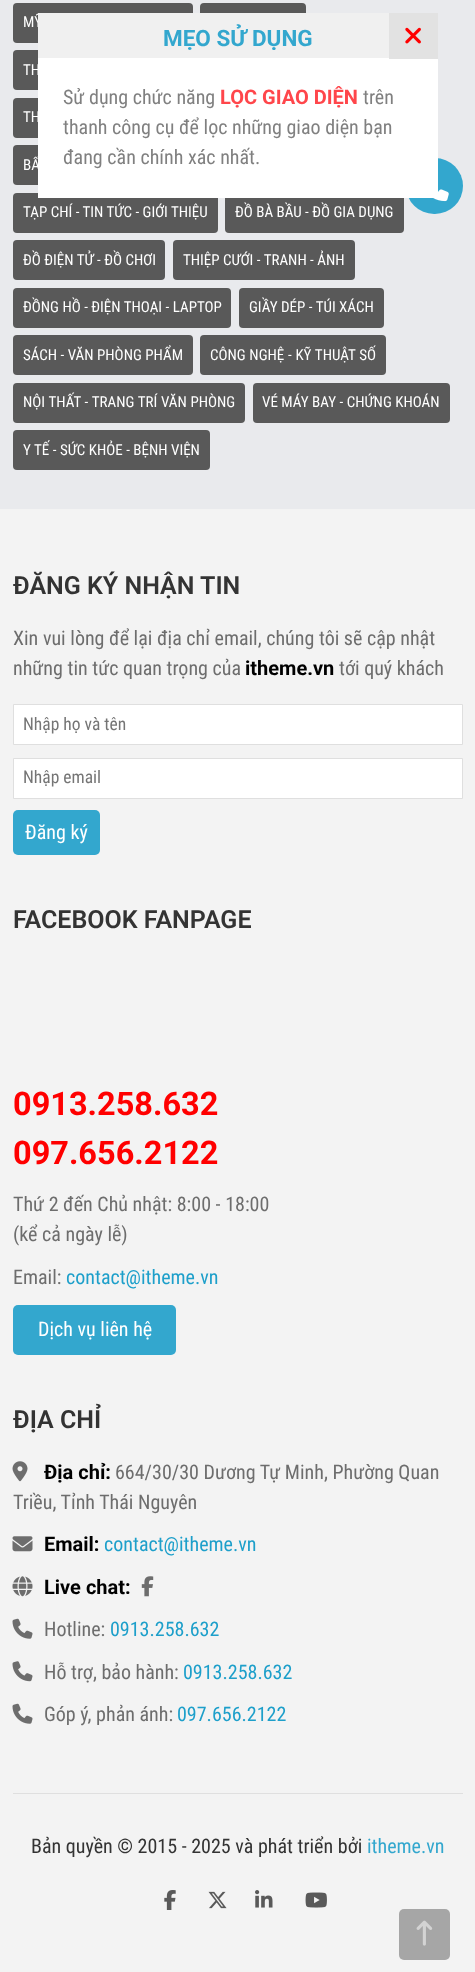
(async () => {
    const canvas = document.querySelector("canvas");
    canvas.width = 475;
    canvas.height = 1972;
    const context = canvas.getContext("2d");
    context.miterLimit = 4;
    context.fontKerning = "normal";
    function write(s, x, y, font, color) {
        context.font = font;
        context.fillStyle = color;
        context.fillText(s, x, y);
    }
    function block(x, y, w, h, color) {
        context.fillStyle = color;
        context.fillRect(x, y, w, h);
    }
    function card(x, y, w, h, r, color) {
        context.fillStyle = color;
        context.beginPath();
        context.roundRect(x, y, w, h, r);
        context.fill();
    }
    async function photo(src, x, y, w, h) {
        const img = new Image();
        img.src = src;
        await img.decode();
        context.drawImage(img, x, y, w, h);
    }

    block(0, 0, 475, 1972, "rgb(233, 234, 237)");
    card(13, 3, 180, 40, 4, "rgb(89, 89, 89)");
    write("MỸ", 23, 27, "15px Roboto Condensed", "rgb(255, 255, 255)");
    card(200, 3, 106, 40, 4, "rgb(89, 89, 89)");
    card(13, 50, 173, 40, 4, "rgb(89, 89, 89)");
    write("TH", 23, 75, "15px Roboto Condensed", "rgb(255, 255, 255)");
    card(13, 98, 103, 40, 4, "rgb(89, 89, 89)");
    write("TH", 23, 122, "15px Roboto Condensed", "rgb(255, 255, 255)");
    card(13, 145, 187, 40, 4, "rgb(89, 89, 89)");
    write("BẤ", 23, 170, "15px Roboto Condensed", "rgb(255, 255, 255)");
    card(13, 193, 205, 40, 4, "rgb(89, 89, 89)");
    write("TẠP CHÍ - TIN TỨC - GIỚI THIỆU", 23, 217, "15px Roboto Condensed", "rgb(255, 255, 255)");
    card(225, 193, 179, 40, 4, "rgb(89, 89, 89)");
    write("ĐỒ BÀ BẦU - ĐỒ GIA DỤNG", 235, 217, "15px Roboto Condensed", "rgb(255, 255, 255)");
    card(13, 240, 152, 40, 4, "rgb(89, 89, 89)");
    write("ĐỒ ĐIỆN TỬ - ĐỒ CHƠI", 23, 265, "15px Roboto Condensed", "rgb(255, 255, 255)");
    card(173, 240, 182, 40, 4, "rgb(89, 89, 89)");
    write("THIỆP CƯỚI - TRANH - ẢNH", 183, 265, "15px Roboto Condensed", "rgb(255, 255, 255)");
    card(13, 288, 218, 40, 4, "rgb(89, 89, 89)");
    write("ĐỒNG HỒ - ĐIỆN THOẠI - LAPTOP", 23, 312, "15px Roboto Condensed", "rgb(255, 255, 255)");
    card(239, 288, 145, 40, 4, "rgb(89, 89, 89)");
    write("GIẦY DÉP - TÚI XÁCH", 249, 312, "15px Roboto Condensed", "rgb(255, 255, 255)");
    card(13, 335, 180, 40, 4, "rgb(89, 89, 89)");
    write("SÁCH - VĂN PHÒNG PHẨM", 23, 360, "15px Roboto Condensed", "rgb(255, 255, 255)");
    card(200, 335, 186, 40, 4, "rgb(89, 89, 89)");
    context.wordSpacing = "0.25px";
    write("CÔNG NGHỆ - KỸ THUẬT SỐ", 210, 360, "15px Roboto Condensed", "rgb(255, 255, 255)");
    card(13, 383, 232, 40, 4, "rgb(89, 89, 89)");
    write("NỘI THẤT - TRANG TRÍ VĂN PHÒNG", 23, 407, "15px Roboto Condensed", "rgb(255, 255, 255)");
    card(253, 383, 197, 40, 4, "rgb(89, 89, 89)");
    context.wordSpacing = "0px";
    write("VÉ MÁY BAY - CHỨNG KHOÁN", 262, 407, "15px Roboto Condensed", "rgb(255, 255, 255)");
    card(13, 430, 197, 40, 4, "rgb(89, 89, 89)");
    write("Y TẾ - SỨC KHỎE - BỆNH VIỆN", 23, 455, "15px Roboto Condensed", "rgb(255, 255, 255)");
    block(0, 509, 475, 1463, "rgb(243, 243, 243)");
    block(13, 1793, 450, 1, "rgb(223, 223, 223)");
    write("ĐĂNG KÝ NHẬN TIN", 13, 594, "600 25px Roboto", "rgb(51, 51, 51)");
    write("Xin vui lòng để lại địa chỉ email, chúng tôi sẽ cập nhật", 13, 645, "20px Roboto Condensed", "rgb(109, 109, 109)");
    write("những tin tức quan trọng của", 13, 675, "20px Roboto Condensed", "rgb(109, 109, 109)");
    write("itheme.vn", 245, 675, "bold 20px Roboto", "rgb(0, 0, 0)");
    write("tới quý khách", 339, 675, "20px Roboto Condensed", "rgb(109, 109, 109)");
    context.fillStyle = "rgb(255, 255, 255)";
    context.beginPath();
    context.rect(13.5, 704.5, 449, 40);
    context.fill();
    context.strokeStyle = "rgb(223, 223, 223)";
    context.stroke();
    write("Nhập họ và tên", 23, 730, "17.5px Roboto Condensed", "rgb(117, 117, 117)");
    context.fillStyle = "rgb(255, 255, 255)";
    context.beginPath();
    context.rect(13.5, 758.5, 449, 40);
    context.fill();
    context.stroke();
    write("Nhập email", 23, 783, "17.5px Roboto Condensed", "rgb(117, 117, 117)");
    card(13, 810, 87, 45, 5, "rgb(51, 167, 206)");
    write("Đăng ký", 25, 839, "20px Roboto Condensed", "rgb(255, 255, 255)");
    write("FACEBOOK FANPAGE", 13, 928, "600 25px Roboto", "rgb(51, 51, 51)");
    write("0913.258.632", 13, 1115, "bold 32.5px Roboto", "rgb(255, 0, 0)");
    write("097.656.2122", 13, 1164, "bold 32.5px Roboto", "rgb(255, 0, 0)");
    write("Thứ 2 đến Chủ nhật: 8:00 - 18:00", 13, 1211, "20px Roboto Condensed", "rgb(109, 109, 109)");
    write("(kể cả ngày lễ)", 13, 1241, "20px Roboto Condensed", "rgb(109, 109, 109)");
    write("Email:", 13, 1284, "20px Roboto Condensed", "rgb(109, 109, 109)");
    write("contact@itheme.vn", 66, 1284, "20px Roboto Condensed", "rgb(29, 159, 202)");
    card(13, 1305, 163, 50, 5, "rgb(51, 167, 206)");
    write("Dịch vụ liên hệ", 38, 1336, "20px Roboto Condensed", "rgb(255, 255, 255)");
    write("ĐỊA CHỈ", 13, 1428, "600 25px Roboto", "rgb(51, 51, 51)");
    await photo("media/1.png", 12, 1461, 16, 21);
    write("Địa chỉ:", 44, 1479, "bold 20px Roboto", "rgb(0, 0, 0)");
    write("664/30/30 Dương Tự Minh, Phường Quan", 115, 1479, "20px Roboto Condensed", "rgb(109, 109, 109)");
    write("Triều, Tỉnh Thái Nguyên", 13, 1509, "20px Roboto Condensed", "rgb(109, 109, 109)");
    await photo("media/2.png", 12, 1536, 21, 16);
    write("Email:", 44, 1551, "bold 20px Roboto", "rgb(0, 0, 0)");
    write("contact@itheme.vn", 104, 1551, "20px Roboto Condensed", "rgb(29, 159, 202)");
    await photo("media/3.png", 12, 1576, 21, 21);
    write("Live chat:", 44, 1594, "bold 20px Roboto", "rgb(0, 0, 0)");
    await photo("media/4.png", 141, 1576, 13, 21);
    await photo("media/5.png", 12, 1618, 21, 21);
    write("Hotline:", 44, 1636, "20px Roboto Condensed", "rgb(109, 109, 109)");
    write("0913.258.632", 110, 1636, "20px Roboto Condensed", "rgb(29, 159, 202)");
    await photo("media/6.png", 12, 1661, 21, 21);
    write("Hỗ trợ, bảo hành:", 44, 1679, "20px Roboto Condensed", "rgb(109, 109, 109)");
    write("0913.258.632", 183, 1679, "20px Roboto Condensed", "rgb(29, 159, 202)");
    await photo("media/5.png", 12, 1703, 21, 21);
    write("Góp ý, phản ánh:", 44, 1721, "20px Roboto Condensed", "rgb(109, 109, 109)");
    write("097.656.2122", 177, 1721, "20px Roboto Condensed", "rgb(29, 159, 202)");
    write("Bản quyền © 2015 - 2025 và phát triển bởi", 31, 1853, "20px Roboto Condensed", "rgb(51, 51, 51)");
    write("itheme.vn", 367, 1853, "20px Roboto Condensed", "rgb(51, 167, 206)");
    await photo("media/7.png", 164, 1890, 12, 20);
    await photo("media/8.png", 208, 1891, 19, 18);
    await photo("media/9.png", 255, 1890, 18, 18);
    await photo("media/10.png", 305, 1892, 22, 16);
    card(406, 158, 57, 56, 28, "rgb(51, 167, 206)");
    await photo("media/12.png", 433, 189, 16, 13);
    block(38, 58, 400, 140, "rgb(255, 255, 255)");
    block(38, 13, 351, 45, "rgb(240, 240, 240)");
    write("MẸO SỬ DỤNG", 163, 46, "bold 22.5px Roboto", "rgb(51, 167, 206)");
    block(389, 13, 49, 46, "rgb(226, 226, 226)");
    await photo("media/11.png", 405, 27, 16, 17);
    write("Sử dụng chức năng", 63, 104, "20px Roboto Condensed", "rgb(128, 128, 128)");
    write("LỌC GIAO DIỆN", 220, 104, "bold 20px Roboto", "rgb(255, 70, 75)");
    write("trên", 363, 104, "20px Roboto Condensed", "rgb(128, 128, 128)");
    write("thanh công cụ để lọc những giao diện bạn", 63, 134, "20px Roboto Condensed", "rgb(128, 128, 128)");
    write("đang cần chính xác nhất.", 63, 164, "20px Roboto Condensed", "rgb(128, 128, 128)");
    card(399, 1909, 51, 51, 5, "rgb(166, 166, 166)");
    await photo("media/13.png", 416, 1920, 17, 26);
})();
